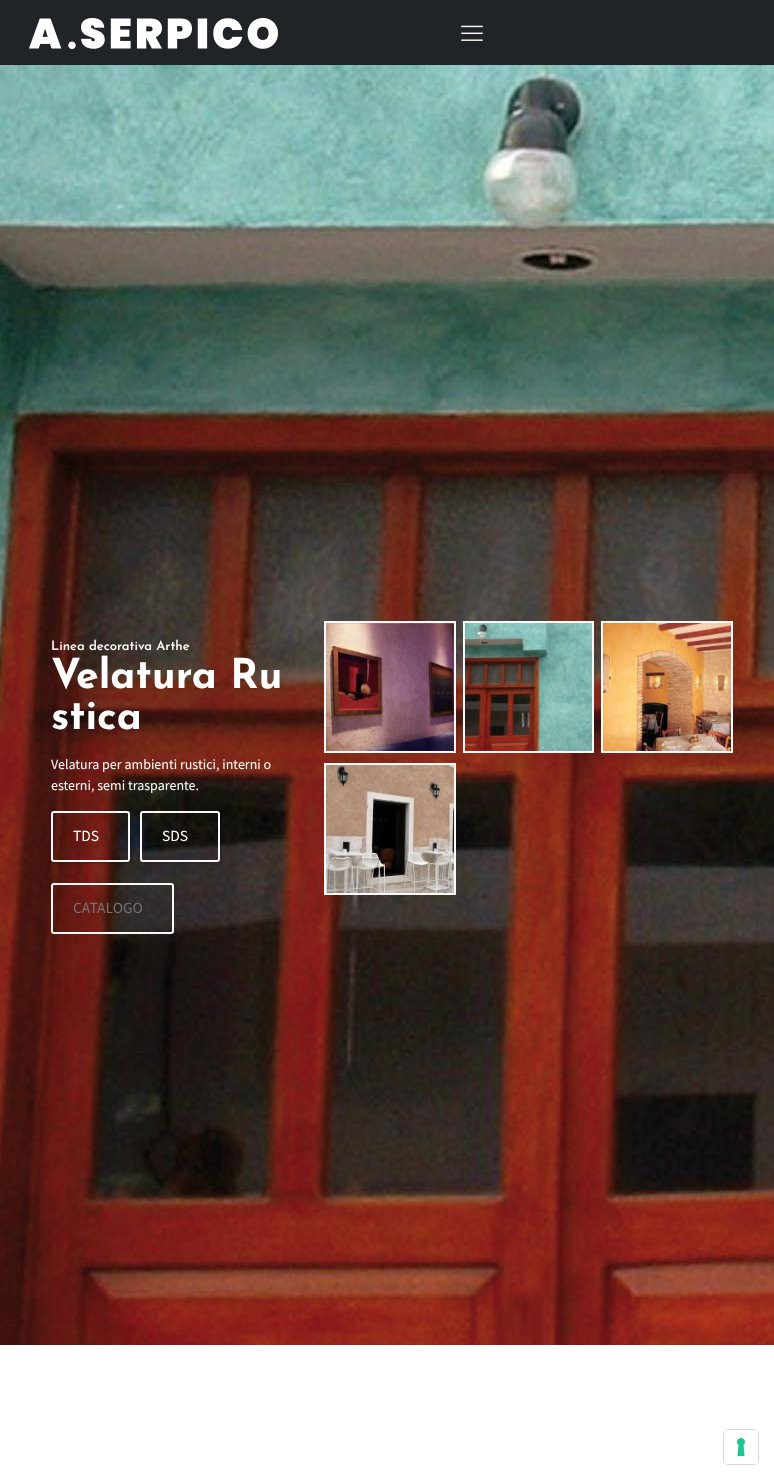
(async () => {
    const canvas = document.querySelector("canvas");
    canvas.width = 774;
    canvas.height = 1480;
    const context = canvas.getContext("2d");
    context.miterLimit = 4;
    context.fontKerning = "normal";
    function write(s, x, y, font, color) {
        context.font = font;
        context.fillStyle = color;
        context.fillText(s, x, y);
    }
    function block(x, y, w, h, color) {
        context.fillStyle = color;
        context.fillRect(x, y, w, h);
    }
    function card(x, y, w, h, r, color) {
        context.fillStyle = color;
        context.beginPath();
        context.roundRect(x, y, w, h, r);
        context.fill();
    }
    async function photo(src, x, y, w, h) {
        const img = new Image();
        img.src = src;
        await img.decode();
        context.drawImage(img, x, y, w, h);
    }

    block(0, 0, 774, 1480, "rgb(255, 255, 255)");
    block(0, 0, 774, 65, "rgb(32, 35, 40)");
    await photo("media/1.png", 29, 18, 249, 31);
    await photo("media/2.png", 461, 25, 22, 16);
    await photo("media/3.png", 0, 65, 774, 1280);
    write("Linea decorativa Arthe", 51, 650, "600 13px Josefin Sans", "rgb(255, 255, 255)");
    write("Velatura Ru", 51, 688, "bold 41px Josefin Sans", "rgb(255, 255, 255)");
    write("stica", 51, 729, "bold 41px Josefin Sans", "rgb(255, 255, 255)");
    write("Velatura per ambienti rustici, interni o", 51, 769, "14px Source Sans Pro", "rgb(255, 255, 255)");
    write("esterni, semi trasparente.", 51, 790, "14px Source Sans Pro", "rgb(255, 255, 255)");
    context.save();
    context.beginPath();
    context.moveTo(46, 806);
    context.lineTo(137, 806);
    context.lineTo(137, 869);
    context.lineTo(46, 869);
    context.closePath();
    context.moveTo(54, 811);
    context.lineTo(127, 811);
    context.bezierCurveTo(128.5, 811, 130, 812.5, 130, 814);
    context.lineTo(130, 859);
    context.bezierCurveTo(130, 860.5, 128.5, 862, 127, 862);
    context.lineTo(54, 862);
    context.bezierCurveTo(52.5, 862, 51, 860.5, 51, 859);
    context.lineTo(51, 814);
    context.bezierCurveTo(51, 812.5, 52.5, 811, 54, 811);
    context.closePath();
    context.clip("evenodd");
    context.fillStyle = "rgba(0, 0, 0, 0.3)";
    context.filter = "blur(1.5px)";
    context.beginPath();
    context.roundRect(52, 812, 79, 51, 3);
    context.fill();
    context.filter = "none";
    context.restore();
    context.beginPath();
    context.roundRect(52, 812, 77, 49, 2);
    context.strokeStyle = "rgb(247, 247, 247)";
    context.lineWidth = 2;
    context.stroke();
    write("TDS", 73, 841, "15.5px Source Sans Pro", "rgb(255, 255, 255)");
    context.save();
    context.beginPath();
    context.moveTo(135, 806);
    context.lineTo(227, 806);
    context.lineTo(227, 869);
    context.lineTo(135, 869);
    context.closePath();
    context.moveTo(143, 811);
    context.lineTo(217, 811);
    context.bezierCurveTo(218.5, 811, 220, 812.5, 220, 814);
    context.lineTo(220, 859);
    context.bezierCurveTo(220, 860.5, 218.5, 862, 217, 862);
    context.lineTo(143, 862);
    context.bezierCurveTo(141.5, 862, 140, 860.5, 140, 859);
    context.lineTo(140, 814);
    context.bezierCurveTo(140, 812.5, 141.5, 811, 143, 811);
    context.closePath();
    context.clip("evenodd");
    context.fillStyle = "rgba(0, 0, 0, 0.3)";
    context.filter = "blur(1.5px)";
    context.beginPath();
    context.roundRect(141, 812, 80, 51, 3);
    context.fill();
    context.filter = "none";
    context.restore();
    context.beginPath();
    context.roundRect(141, 812, 78, 49, 2);
    context.stroke();
    write("SDS", 162, 841, "15.5px Source Sans Pro", "rgb(255, 255, 255)");
    context.beginPath();
    context.roundRect(52, 884, 121, 49, 2);
    context.stroke();
    write("CATALOGO", 73, 913, "15.5px Source Sans Pro", "rgb(116, 116, 116)");
    context.strokeStyle = "rgb(248, 248, 248)";
    context.strokeRect(325, 622, 130, 130);
    await photo("media/4.png", 326, 623, 128, 128);
    context.strokeRect(464, 622, 129, 130);
    await photo("media/5.png", 465, 623, 127, 128);
    context.strokeRect(602, 622, 130, 130);
    await photo("media/6.png", 603, 623, 128, 128);
    context.strokeRect(325, 764, 130, 130);
    await photo("media/7.png", 326, 765, 128, 128);
    context.beginPath();
    context.roundRect(723.5, 1429.5, 35, 35, 4.5);
    context.strokeStyle = "rgb(217, 217, 217)";
    context.lineWidth = 1;
    context.stroke();
    card(724, 1430, 34, 34, 4, "rgb(255, 255, 255)");
    await photo("media/8.png", 737, 1438, 8, 18);
})();
